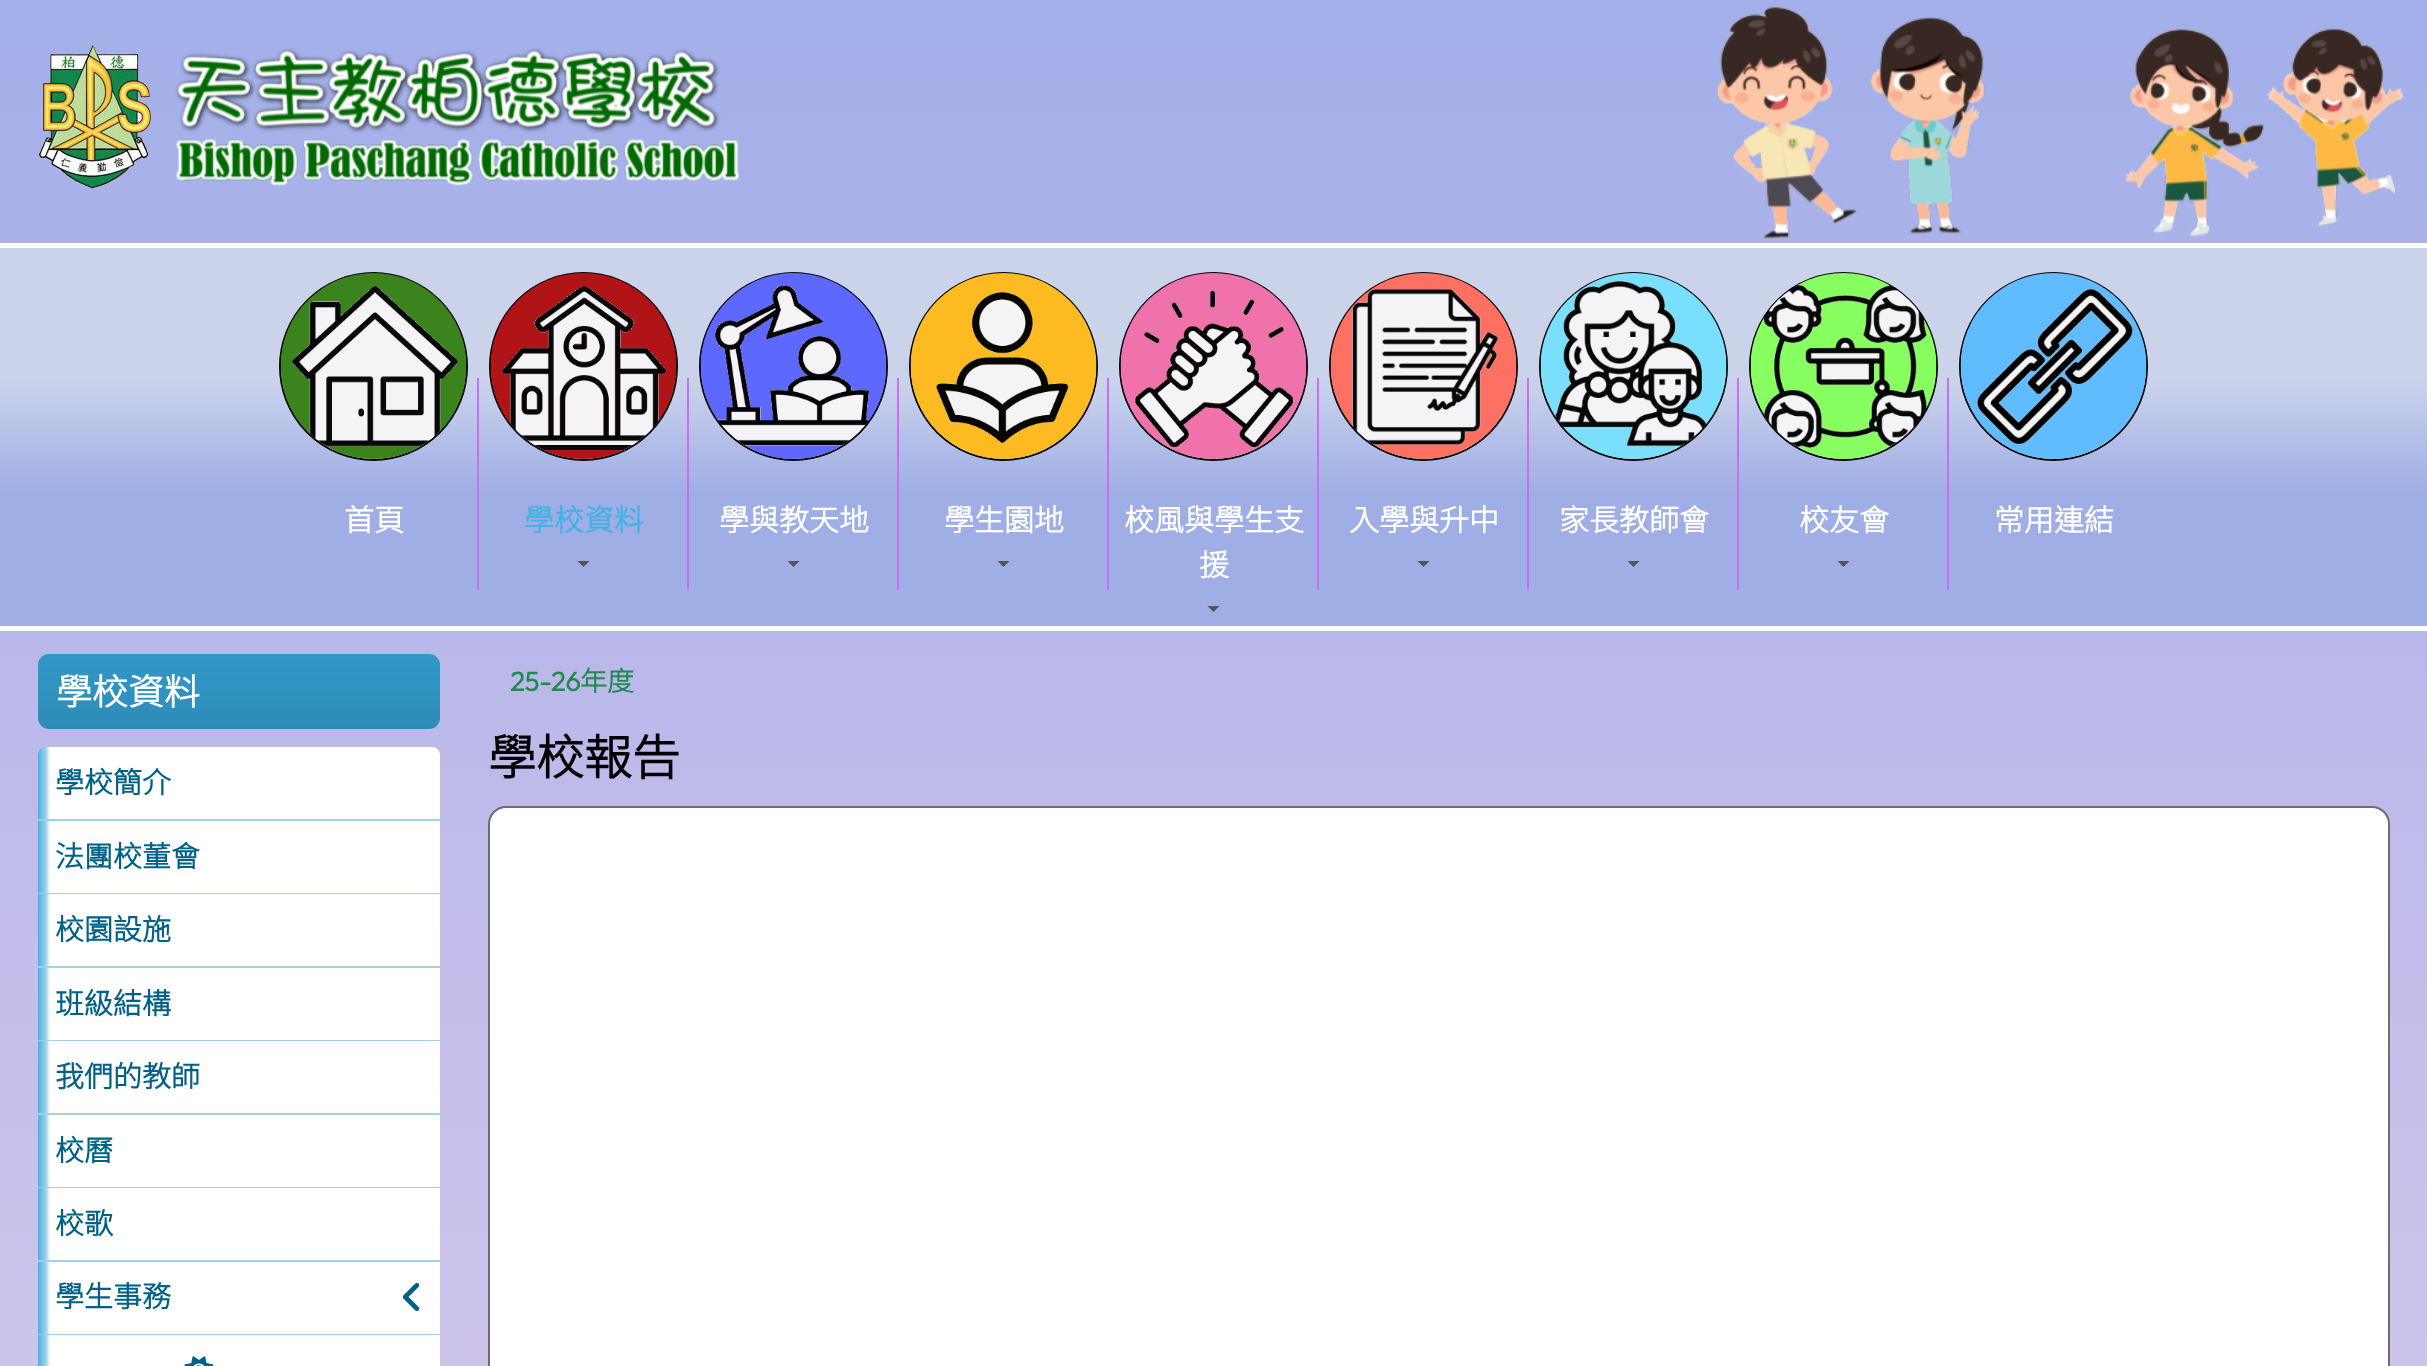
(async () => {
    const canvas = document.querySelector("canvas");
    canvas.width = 2427;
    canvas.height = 1366;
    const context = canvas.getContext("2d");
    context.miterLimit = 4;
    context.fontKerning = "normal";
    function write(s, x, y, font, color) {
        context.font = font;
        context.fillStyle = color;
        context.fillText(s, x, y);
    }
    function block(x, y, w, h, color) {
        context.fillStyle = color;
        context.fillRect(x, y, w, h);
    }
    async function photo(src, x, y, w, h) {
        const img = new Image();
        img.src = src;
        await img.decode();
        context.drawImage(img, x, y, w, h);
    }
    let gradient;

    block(0, 0, 2427, 1366, "rgb(255, 255, 255)");
    gradient = context.createLinearGradient(1213, 0, 1214, 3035);
    gradient.addColorStop(0, "rgb(162, 175, 233)");
    gradient.addColorStop(0.25, "rgb(189, 186, 234)");
    gradient.addColorStop(0.5, "rgb(210, 199, 236)");
    gradient.addColorStop(0.75, "rgb(227, 213, 238)");
    gradient.addColorStop(1, "rgb(240, 228, 242)");
    context.fillStyle = gradient;
    context.fillRect(0, 0, 2427, 1366);
    await photo("media/1.png", 38, 45, 113, 144);
    await photo("media/2.png", 175, 48, 565, 138);
    await photo("media/3.png", 1716, 6, 689, 233);
    gradient = context.createLinearGradient(1214, 247, 1214, 626);
    gradient.addColorStop(0, "rgb(203, 211, 235)");
    gradient.addColorStop(0.35, "rgb(203, 211, 235)");
    gradient.addColorStop(0.65, "rgb(159, 174, 229)");
    gradient.addColorStop(1, "rgb(159, 174, 229)");
    context.fillStyle = gradient;
    context.fillRect(0, 248, 2427, 378);
    block(0, 243, 2427, 5, "rgb(255, 255, 255)");
    block(0, 626, 2427, 5, "rgb(255, 255, 255)");
    context.beginPath();
    context.arc(373.5, 366.5, 93.5, 0, Math.PI * 2);
    context.fill();
    context.strokeStyle = "rgb(0, 0, 0)";
    context.lineWidth = 2;
    context.stroke();
    await photo("media/4.png", 280, 273, 187, 186);
    write("首頁", 344, 531, "bold 30px Noto Sans HK", "rgb(255, 255, 255)");
    block(477, 378, 2, 212, "rgb(200, 111, 237)");
    context.fillStyle = "rgb(255, 255, 255)";
    context.beginPath();
    context.arc(583.5, 366.5, 93.5, 0, Math.PI * 2);
    context.fill();
    context.stroke();
    await photo("media/5.png", 490, 273, 187, 186);
    write("學校資料", 524, 531, "bold 30px Noto Sans HK", "rgb(68, 178, 229)");
    context.fillStyle = "rgb(85, 85, 85)";
    context.beginPath();
    context.moveTo(577.5, 561);
    context.lineTo(589.5, 561);
    context.lineTo(583.5, 567);
    context.closePath();
    context.fill();
    block(687, 378, 2, 212, "rgb(200, 111, 237)");
    context.fillStyle = "rgb(255, 255, 255)";
    context.beginPath();
    context.arc(793.5, 366.5, 93.5, 0, Math.PI * 2);
    context.fill();
    context.stroke();
    await photo("media/6.png", 700, 273, 187, 186);
    write("學與教天地", 719, 531, "bold 30px Noto Sans HK", "rgb(255, 255, 255)");
    context.fillStyle = "rgb(85, 85, 85)";
    context.beginPath();
    context.moveTo(787.5, 561);
    context.lineTo(799.5, 561);
    context.lineTo(793.5, 567);
    context.closePath();
    context.fill();
    block(897, 378, 2, 212, "rgb(200, 111, 237)");
    context.fillStyle = "rgb(255, 255, 255)";
    context.beginPath();
    context.arc(1003.5, 366.5, 93.5, 0, Math.PI * 2);
    context.fill();
    context.stroke();
    await photo("media/7.png", 910, 273, 187, 186);
    write("學生園地", 944, 531, "bold 30px Noto Sans HK", "rgb(255, 255, 255)");
    context.fillStyle = "rgb(85, 85, 85)";
    context.beginPath();
    context.moveTo(997.5, 561);
    context.lineTo(1009.5, 561);
    context.lineTo(1003.5, 567);
    context.closePath();
    context.fill();
    block(1107, 378, 2, 212, "rgb(200, 111, 237)");
    context.fillStyle = "rgb(255, 255, 255)";
    context.beginPath();
    context.arc(1213.5, 366.5, 93.5, 0, Math.PI * 2);
    context.fill();
    context.stroke();
    await photo("media/8.png", 1120, 273, 187, 186);
    write("校風與學生支", 1124, 531, "bold 30px Noto Sans HK", "rgb(255, 255, 255)");
    write("援", 1199, 576, "bold 30px Noto Sans HK", "rgb(255, 255, 255)");
    context.fillStyle = "rgb(85, 85, 85)";
    context.beginPath();
    context.moveTo(1207.5, 606);
    context.lineTo(1219.5, 606);
    context.lineTo(1213.5, 612);
    context.closePath();
    context.fill();
    block(1317, 378, 2, 212, "rgb(200, 111, 237)");
    context.fillStyle = "rgb(255, 255, 255)";
    context.beginPath();
    context.arc(1423.5, 366.5, 93.5, 0, Math.PI * 2);
    context.fill();
    context.stroke();
    await photo("media/9.png", 1330, 273, 187, 186);
    write("入學與升中", 1349, 531, "bold 30px Noto Sans HK", "rgb(255, 255, 255)");
    context.fillStyle = "rgb(85, 85, 85)";
    context.beginPath();
    context.moveTo(1417.5, 561);
    context.lineTo(1429.5, 561);
    context.lineTo(1423.5, 567);
    context.closePath();
    context.fill();
    block(1527, 378, 2, 212, "rgb(200, 111, 237)");
    context.fillStyle = "rgb(255, 255, 255)";
    context.beginPath();
    context.arc(1633.5, 366.5, 93.5, 0, Math.PI * 2);
    context.fill();
    context.stroke();
    await photo("media/10.png", 1540, 273, 187, 186);
    write("家長教師會", 1559, 531, "bold 30px Noto Sans HK", "rgb(255, 255, 255)");
    context.fillStyle = "rgb(85, 85, 85)";
    context.beginPath();
    context.moveTo(1627.5, 561);
    context.lineTo(1639.5, 561);
    context.lineTo(1633.5, 567);
    context.closePath();
    context.fill();
    block(1737, 378, 2, 212, "rgb(200, 111, 237)");
    context.fillStyle = "rgb(255, 255, 255)";
    context.beginPath();
    context.arc(1843.5, 366.5, 93.5, 0, Math.PI * 2);
    context.fill();
    context.stroke();
    await photo("media/11.png", 1750, 273, 187, 186);
    write("校友會", 1799, 531, "bold 30px Noto Sans HK", "rgb(255, 255, 255)");
    context.fillStyle = "rgb(85, 85, 85)";
    context.beginPath();
    context.moveTo(1837.5, 561);
    context.lineTo(1849.5, 561);
    context.lineTo(1843.5, 567);
    context.closePath();
    context.fill();
    block(1947, 378, 2, 212, "rgb(200, 111, 237)");
    context.fillStyle = "rgb(255, 255, 255)";
    context.beginPath();
    context.arc(2053.5, 366.5, 93.5, 0, Math.PI * 2);
    context.fill();
    context.stroke();
    await photo("media/12.png", 1960, 273, 187, 186);
    write("常用連結", 1994, 531, "bold 30px Noto Sans HK", "rgb(255, 255, 255)");
    gradient = context.createLinearGradient(239, 654, 239, 729);
    gradient.addColorStop(0, "rgb(49, 152, 199)");
    gradient.addColorStop(1, "rgb(46, 140, 184)");
    context.fillStyle = gradient;
    context.beginPath();
    context.roundRect(38, 654, 402, 75, 11);
    context.fill();
    write("學校資料", 56, 705, "bold 36px Noto Sans HK", "rgb(255, 255, 255)");
    gradient = context.createLinearGradient(38, 783, 440, 783);
    gradient.addColorStop(0, "rgb(68, 178, 229)");
    gradient.addColorStop(0.02, "rgb(161, 209, 232)");
    gradient.addColorStop(0.03, "rgb(255, 255, 255)");
    gradient.addColorStop(1, "rgb(255, 255, 255)");
    context.fillStyle = gradient;
    context.beginPath();
    context.roundRect(38, 747, 402, 74, [8, 8, 0, 0]);
    context.fill();
    block(38, 819, 402, 2, "rgb(161, 209, 232)");
    write("學校簡介", 55, 793, "bold 29px Noto Sans HK", "rgb(0, 97, 135)");
    gradient = context.createLinearGradient(38, 857, 440, 857);
    gradient.addColorStop(0, "rgb(68, 178, 229)");
    gradient.addColorStop(0.02, "rgb(161, 209, 232)");
    gradient.addColorStop(0.03, "rgb(255, 255, 255)");
    gradient.addColorStop(1, "rgb(255, 255, 255)");
    context.fillStyle = gradient;
    context.fillRect(38, 821, 402, 72);
    block(38, 893, 402, 1, "rgb(161, 209, 232)");
    write("法團校董會", 55, 867, "bold 29px Noto Sans HK", "rgb(0, 97, 135)");
    gradient = context.createLinearGradient(38, 930, 440, 930);
    gradient.addColorStop(0, "rgb(68, 178, 229)");
    gradient.addColorStop(0.02, "rgb(161, 209, 232)");
    gradient.addColorStop(0.03, "rgb(255, 255, 255)");
    gradient.addColorStop(1, "rgb(255, 255, 255)");
    context.fillStyle = gradient;
    context.fillRect(38, 894, 402, 72);
    block(38, 966, 402, 2, "rgb(161, 209, 232)");
    write("校園設施", 55, 940, "bold 29px Noto Sans HK", "rgb(0, 97, 135)");
    gradient = context.createLinearGradient(38, 1004, 440, 1004);
    gradient.addColorStop(0, "rgb(68, 178, 229)");
    gradient.addColorStop(0.02, "rgb(161, 209, 232)");
    gradient.addColorStop(0.03, "rgb(255, 255, 255)");
    gradient.addColorStop(1, "rgb(255, 255, 255)");
    context.fillStyle = gradient;
    context.fillRect(38, 968, 402, 72);
    block(38, 1040, 402, 1, "rgb(161, 209, 232)");
    write("班級結構", 55, 1014, "bold 29px Noto Sans HK", "rgb(0, 97, 135)");
    gradient = context.createLinearGradient(38, 1077, 440, 1077);
    gradient.addColorStop(0, "rgb(68, 178, 229)");
    gradient.addColorStop(0.02, "rgb(161, 209, 232)");
    gradient.addColorStop(0.03, "rgb(255, 255, 255)");
    gradient.addColorStop(1, "rgb(255, 255, 255)");
    context.fillStyle = gradient;
    context.fillRect(38, 1041, 402, 72);
    block(38, 1113, 402, 2, "rgb(161, 209, 232)");
    write("我們的教師", 55, 1087, "bold 29px Noto Sans HK", "rgb(0, 97, 135)");
    gradient = context.createLinearGradient(38, 1151, 440, 1151);
    gradient.addColorStop(0, "rgb(68, 178, 229)");
    gradient.addColorStop(0.02, "rgb(161, 209, 232)");
    gradient.addColorStop(0.03, "rgb(255, 255, 255)");
    gradient.addColorStop(1, "rgb(255, 255, 255)");
    context.fillStyle = gradient;
    context.fillRect(38, 1115, 402, 72);
    block(38, 1187, 402, 1, "rgb(161, 209, 232)");
    write("校曆", 55, 1161, "bold 29px Noto Sans HK", "rgb(0, 97, 135)");
    gradient = context.createLinearGradient(38, 1224, 440, 1224);
    gradient.addColorStop(0, "rgb(68, 178, 229)");
    gradient.addColorStop(0.02, "rgb(161, 209, 232)");
    gradient.addColorStop(0.03, "rgb(255, 255, 255)");
    gradient.addColorStop(1, "rgb(255, 255, 255)");
    context.fillStyle = gradient;
    context.fillRect(38, 1188, 402, 72);
    block(38, 1260, 402, 2, "rgb(161, 209, 232)");
    write("校歌", 55, 1234, "bold 29px Noto Sans HK", "rgb(0, 97, 135)");
    gradient = context.createLinearGradient(38, 1298, 440, 1298);
    gradient.addColorStop(0, "rgb(68, 178, 229)");
    gradient.addColorStop(0.02, "rgb(161, 209, 232)");
    gradient.addColorStop(0.03, "rgb(255, 255, 255)");
    gradient.addColorStop(1, "rgb(255, 255, 255)");
    context.fillStyle = gradient;
    context.fillRect(38, 1262, 402, 72);
    block(38, 1334, 402, 1, "rgb(161, 209, 232)");
    write("學生事務", 55, 1307, "bold 29px Noto Sans HK", "rgb(0, 97, 135)");
    await photo("media/13.png", 402, 1282, 18, 29);
    gradient = context.createLinearGradient(38, 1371, 440, 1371);
    gradient.addColorStop(0, "rgb(68, 178, 229)");
    gradient.addColorStop(0.02, "rgb(161, 209, 232)");
    gradient.addColorStop(0.03, "rgb(255, 255, 255)");
    gradient.addColorStop(1, "rgb(255, 255, 255)");
    context.fillStyle = gradient;
    context.fillRect(38, 1335, 402, 31);
    await photo("media/14.png", 184, 1356, 30, 10);
    write("25-26", 510, 691, "bold 27px Outfit", "rgb(32, 138, 81)");
    write("年度", 580, 691, "bold 27px Noto Sans HK", "rgb(32, 138, 81)");
    write("學校報告", 488, 775, "bold 48px Noto Sans HK", "rgb(0, 0, 0)");
    context.fillStyle = "rgb(255, 255, 255)";
    context.beginPath();
    context.roundRect(489, 807, 1900, 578, 17);
    context.fill();
    context.strokeStyle = "rgb(109, 109, 109)";
    context.stroke();
})();
